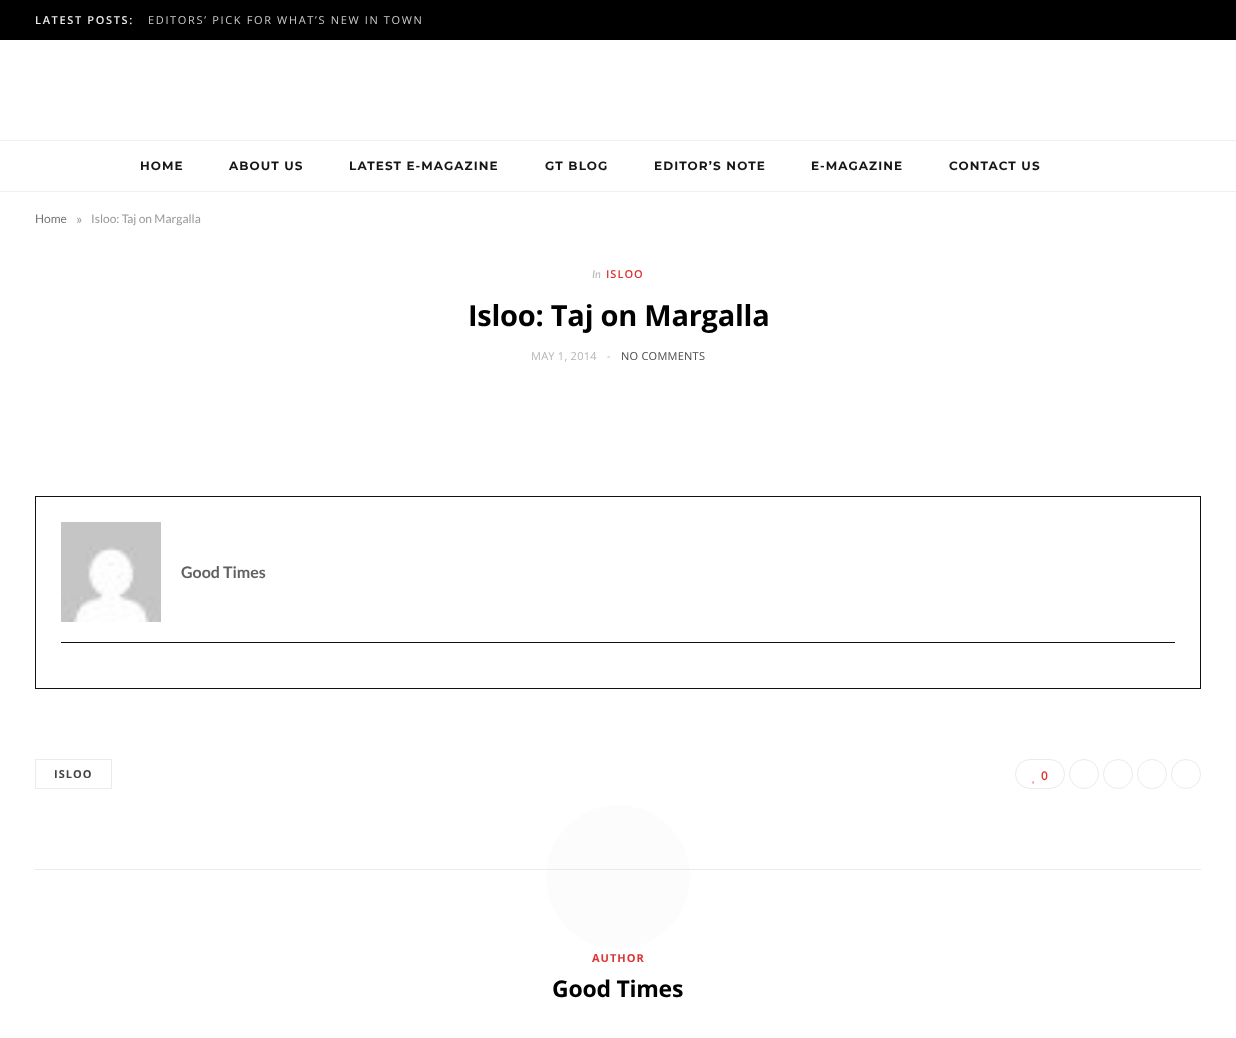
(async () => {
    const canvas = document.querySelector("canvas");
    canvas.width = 1236;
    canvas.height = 1038;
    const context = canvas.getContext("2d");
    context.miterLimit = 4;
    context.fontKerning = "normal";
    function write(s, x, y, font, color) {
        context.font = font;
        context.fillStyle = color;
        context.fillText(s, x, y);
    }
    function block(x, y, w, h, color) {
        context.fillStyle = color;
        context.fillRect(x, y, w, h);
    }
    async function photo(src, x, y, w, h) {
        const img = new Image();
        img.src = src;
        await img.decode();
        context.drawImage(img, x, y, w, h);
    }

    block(0, 0, 1236, 1038, "rgb(255, 255, 255)");
    block(0, 0, 1236, 40, "rgb(0, 0, 0)");
    context.letterSpacing = "1.65px";
    write("LATEST POSTS:", 35, 24, "600 11px Open Sans", "rgb(235, 235, 235)");
    write("EDITORS’ PICK FOR WHAT’S NEW IN TOWN", 148, 24, "11px Open Sans", "rgb(204, 204, 204)");
    block(0, 140, 1236, 1, "rgb(239, 239, 239)");
    block(0, 191, 1236, 1, "rgb(239, 239, 239)");
    context.letterSpacing = "1.1px";
    write("HOME", 140, 170, "bold 12px Montserrat", "rgb(22, 22, 22)");
    write("ABOUT US", 229, 170, "bold 12px Montserrat", "rgb(22, 22, 22)");
    write("LATEST E-MAGAZINE", 349, 170, "bold 12px Montserrat", "rgb(22, 22, 22)");
    write("GT BLOG", 545, 170, "bold 12px Montserrat", "rgb(22, 22, 22)");
    write("EDITOR’S NOTE", 654, 170, "bold 12px Montserrat", "rgb(22, 22, 22)");
    write("E-MAGAZINE", 811, 170, "bold 12px Montserrat", "rgb(22, 22, 22)");
    write("CONTACT US", 949, 170, "bold 12px Montserrat", "rgb(22, 22, 22)");
    context.letterSpacing = "0px";
    write("Home", 35, 223, "12px Lato", "rgb(116, 116, 116)");
    write("»", 76, 224, "14px Lato", "rgb(153, 153, 153)");
    write("Isloo: Taj on Margalla", 91, 223, "12px Lato", "rgb(153, 153, 153)");
    write("In", 592, 278, "italic 11px Lato", "rgb(180, 180, 180)");
    context.letterSpacing = "1px";
    write("ISLOO", 606, 278, "600 11px Open Sans", "rgb(221, 51, 51)");
    context.letterSpacing = "-0.25px";
    write("Isloo: Taj on Margalla", 468, 326, "bold 29px Open Sans", "rgb(0, 0, 0)");
    context.letterSpacing = "0.25px";
    write("MAY 1, 2014", 531, 360, "11px Open Sans", "rgb(180, 180, 180)");
    context.letterSpacing = "0px";
    write("-", 607, 360, "11px Open Sans", "rgb(180, 180, 180)");
    context.letterSpacing = "0.25px";
    write("NO COMMENTS", 621, 360, "11px Open Sans", "rgb(69, 69, 69)");
    context.strokeStyle = "rgb(17, 17, 17)";
    context.strokeRect(35.5, 496.5, 1165, 192);
    await photo("media/1.png", 61, 522, 100, 100);
    context.letterSpacing = "0px";
    write("Good Times", 181, 578, "bold 16px Lato", "rgb(97, 97, 97)");
    block(61, 642, 1114, 1, "rgb(17, 17, 17)");
    context.strokeStyle = "rgb(235, 235, 235)";
    context.strokeRect(35.5, 759.5, 76, 29);
    context.letterSpacing = "1px";
    write("ISLOO", 54, 778, "bold 11px Open Sans", "rgb(69, 69, 69)");
    context.beginPath();
    context.roundRect(1015.5, 759.5, 49, 29, 14.5);
    context.stroke();
    context.letterSpacing = "0px";
    write("0", 1041, 780, "600 12px Open Sans", "rgb(221, 51, 51)");
    await photo("media/2.png", 1032, 781, 2, 3);
    context.beginPath();
    context.arc(1084, 774, 14.5, 0, Math.PI * 2);
    context.stroke();
    context.beginPath();
    context.arc(1118, 774, 14.5, 0, Math.PI * 2);
    context.stroke();
    context.beginPath();
    context.arc(1152, 774, 14.5, 0, Math.PI * 2);
    context.stroke();
    context.beginPath();
    context.arc(1186, 774, 14.5, 0, Math.PI * 2);
    context.stroke();
    block(35, 869, 1166, 1, "rgb(235, 235, 235)");
    context.fillStyle = "rgba(221, 221, 221, 0.1)";
    context.beginPath();
    context.arc(618, 877, 72, 0, Math.PI * 2);
    context.fill();
    context.letterSpacing = "1px";
    write("AUTHOR", 592, 962, "bold 11px Open Sans", "rgb(221, 51, 51)");
    context.letterSpacing = "-0.25px";
    write("Good Times", 552, 997, "bold 23px Open Sans", "rgb(0, 0, 0)");
})();
